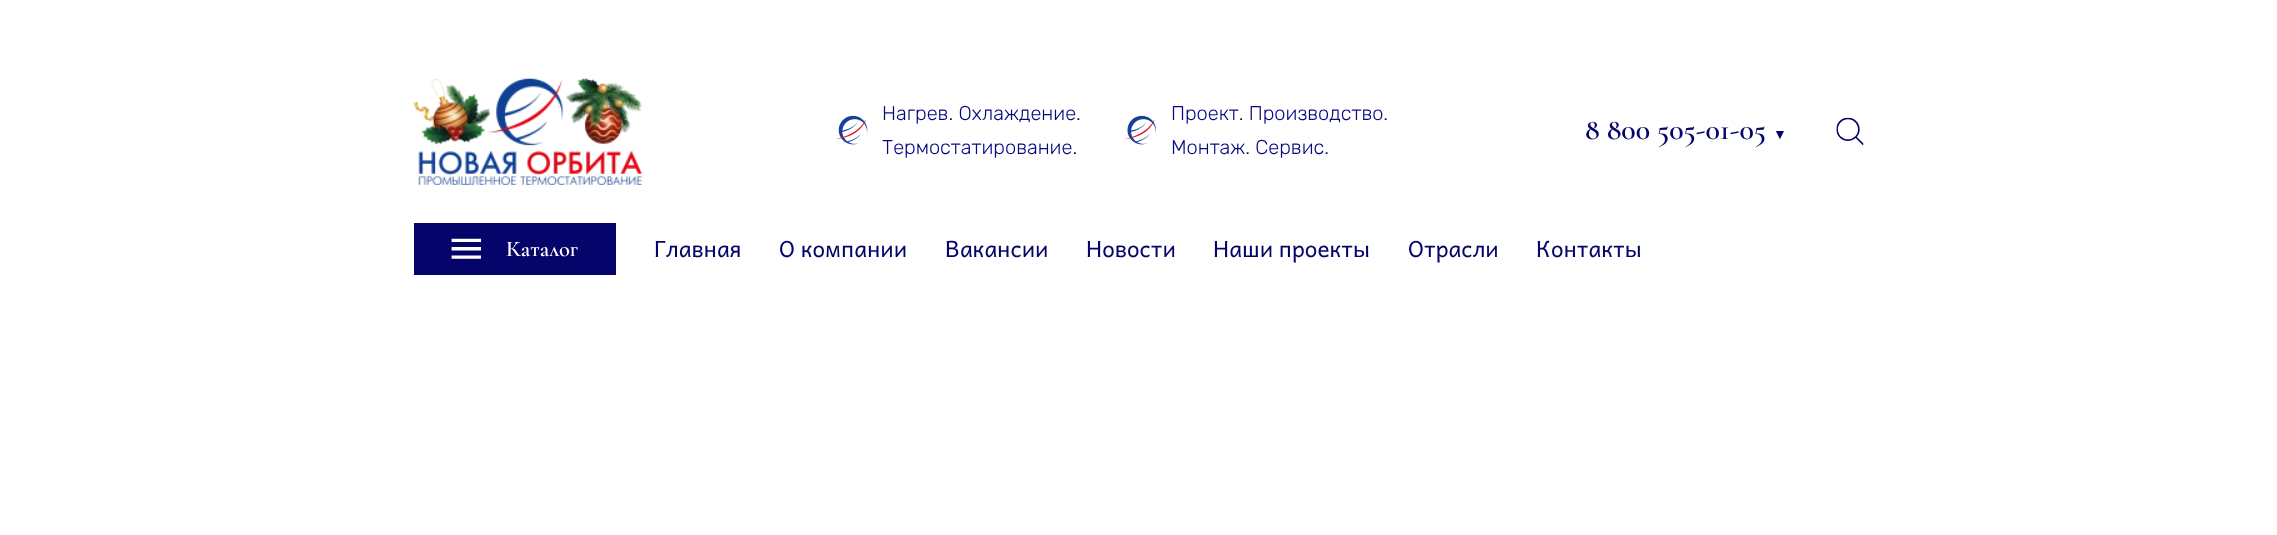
(async () => {
    const canvas = document.querySelector("canvas");
    canvas.width = 2277;
    canvas.height = 535;
    const context = canvas.getContext("2d");
    context.miterLimit = 4;
    context.fontKerning = "normal";
    function write(s, x, y, font, color) {
        context.font = font;
        context.fillStyle = color;
        context.fillText(s, x, y);
    }
    function block(x, y, w, h, color) {
        context.fillStyle = color;
        context.fillRect(x, y, w, h);
    }
    async function photo(src, x, y, w, h) {
        const img = new Image();
        img.src = src;
        await img.decode();
        context.drawImage(img, x, y, w, h);
    }

    block(0, 0, 2277, 535, "rgb(255, 255, 255)");
    await photo("media/1.png", 413, 77, 230, 108);
    await photo("media/2.png", 836, 115, 32, 30);
    write("Нагрев. Охлаждение.", 882, 120, "300 20px Rubik", "rgb(7, 7, 128)");
    write("Термостатирование.", 882, 154, "300 20px Rubik", "rgb(7, 7, 128)");
    await photo("media/3.png", 1125, 115, 31, 30);
    write("Проект. Производство.", 1171, 120, "300 20px Rubik", "rgb(7, 7, 128)");
    write("Монтаж. Сервис.", 1171, 154, "300 20px Rubik", "rgb(7, 7, 128)");
    write("8 800 505-01-05", 1585, 139, "600 30px Cormorant Garamond", "rgb(4, 4, 107)");
    write("▼", 1773, 139, "bold 14px Liberation Serif", "rgb(4, 4, 107)");
    await photo("media/4.png", 1836, 117, 28, 28);
    block(414, 223, 202, 52, "rgb(4, 4, 107)");
    await photo("media/5.png", 451, 238, 30, 21);
    write("Каталог", 506, 256, "600 22.5px Cormorant Garamond", "rgb(255, 255, 255)");
    write("Главная", 654, 257, "22.5px Andika", "rgb(4, 4, 107)");
    write("О компании", 779, 257, "22.5px Andika", "rgb(4, 4, 107)");
    write("Вакансии", 945, 257, "22.5px Andika", "rgb(4, 4, 107)");
    write("Новости", 1086, 257, "22.5px Andika", "rgb(4, 4, 107)");
    write("Наши проекты", 1213, 257, "22.5px Andika", "rgb(4, 4, 107)");
    write("Отрасли", 1408, 257, "22.5px Andika", "rgb(4, 4, 107)");
    write("Контакты", 1536, 257, "22.5px Andika", "rgb(4, 4, 107)");
})();
